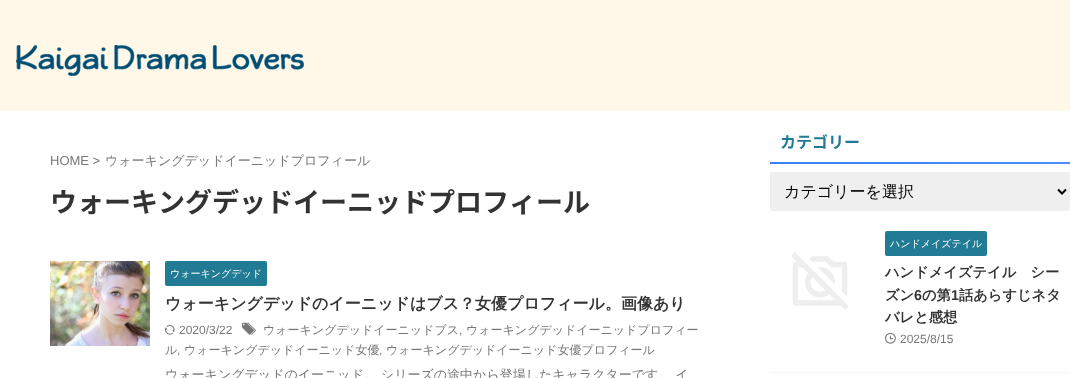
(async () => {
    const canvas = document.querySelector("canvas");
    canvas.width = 1070;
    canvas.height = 378;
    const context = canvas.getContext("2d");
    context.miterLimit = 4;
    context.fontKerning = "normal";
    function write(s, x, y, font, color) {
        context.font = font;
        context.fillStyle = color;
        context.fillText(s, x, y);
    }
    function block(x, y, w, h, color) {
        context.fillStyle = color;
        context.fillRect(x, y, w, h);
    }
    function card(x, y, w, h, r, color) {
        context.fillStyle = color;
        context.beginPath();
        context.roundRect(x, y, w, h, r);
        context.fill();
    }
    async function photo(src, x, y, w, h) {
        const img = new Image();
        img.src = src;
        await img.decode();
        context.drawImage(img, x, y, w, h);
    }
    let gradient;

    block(0, 0, 1070, 378, "rgb(255, 255, 255)");
    block(0, 0, 1070, 111, "rgb(255, 248, 232)");
    await photo("media/1.png", 16, 45, 288, 31);
    write("HOME >", 50, 165, "13px Liberation Sans", "rgb(119, 119, 119)");
    write("ウォーキングデッドイーニッドプロフィール", 105, 165, "500 13px WenQuanYi Zen Hei", "rgb(119, 119, 119)");
    write("ウォーキングデッドイーニッドプロフィール", 50, 212, "bold 27px Noto Sans JP", "rgb(51, 51, 51)");
    await photo("media/2.png", 50, 261, 100, 85);
    card(165, 261, 102, 25, 2, "rgb(34, 123, 148)");
    write("ウォーキングデッド", 170, 277, "500 10px WenQuanYi Zen Hei", "rgb(255, 255, 255)");
    write("ウォーキングデッドのイーニッドはブス？女優プロフィール。画像あり", 165, 309, "bold 16px WenQuanYi Zen Hei", "rgb(51, 51, 51)");
    await photo("media/3.png", 165, 325, 10, 10);
    write("2020/3/22", 179, 334, "12px Liberation Sans", "rgb(119, 119, 119)");
    await photo("media/4.png", 242, 322, 14, 13);
    write("ウォーキングデッドイーニッドブス", 263, 334, "500 12px WenQuanYi Zen Hei", "rgb(119, 119, 119)");
    write(",", 459, 334, "12px Liberation Sans", "rgb(119, 119, 119)");
    write("ウォーキングデッドイーニッドプロフィー", 466, 334, "500 12px WenQuanYi Zen Hei", "rgb(119, 119, 119)");
    write("ル", 165, 354, "500 12px WenQuanYi Zen Hei", "rgb(119, 119, 119)");
    write(",", 177, 354, "12px Liberation Sans", "rgb(119, 119, 119)");
    write("ウォーキングデッドイーニッド女優", 184, 354, "500 12px WenQuanYi Zen Hei", "rgb(119, 119, 119)");
    write(",", 379, 354, "12px Liberation Sans", "rgb(119, 119, 119)");
    write("ウォーキングデッドイーニッド女優プロフィール", 386, 354, "500 12px WenQuanYi Zen Hei", "rgb(119, 119, 119)");
    write("ウォーキングデッドのイーニッド。 シリーズの途中から登場したキャラクターです。 イ", 165, 379, "500 13px WenQuanYi Zen Hei", "rgb(119, 119, 119)");
    write("カテゴリー", 780, 148, "bold 16px Noto Sans JP", "rgb(34, 123, 148)");
    gradient = context.createLinearGradient(1070, 163, 770, 163);
    gradient.addColorStop(0, "rgb(76, 141, 255)");
    gradient.addColorStop(1, "rgb(56, 128, 255)");
    context.fillStyle = gradient;
    context.fillRect(770, 162, 300, 2);
    card(770, 172, 300, 39, 2, "rgb(239, 239, 239)");
    context.beginPath();
    context.moveTo(1058, 189.5);
    context.lineTo(1062, 193.5);
    context.lineTo(1066, 189.5);
    context.strokeStyle = "rgb(0, 0, 0)";
    context.lineWidth = 2;
    context.stroke();
    write("カテゴリーを選択", 784, 197, "500 16px WenQuanYi Zen Hei", "rgb(0, 0, 0)");
    block(770, 372, 300, 1, "rgb(243, 243, 243)");
    await photo("media/5.png", 791, 252, 58, 58);
    card(885, 231, 102, 25, 2, "rgb(34, 123, 148)");
    write("ハンドメイズテイル", 890, 247, "500 10px WenQuanYi Zen Hei", "rgb(255, 255, 255)");
    write("ハンドメイズテイル　シー", 885, 277, "bold 14.25px WenQuanYi Zen Hei", "rgb(51, 51, 51)");
    write("ズン", 885, 300, "bold 14.25px WenQuanYi Zen Hei", "rgb(51, 51, 51)");
    write("6", 914, 300, "bold 14.25px Liberation Sans", "rgb(51, 51, 51)");
    write("の第", 922, 300, "bold 14.25px WenQuanYi Zen Hei", "rgb(51, 51, 51)");
    write("1", 951, 300, "bold 14.25px Liberation Sans", "rgb(51, 51, 51)");
    write("話あらすじネタ", 959, 300, "bold 14.25px WenQuanYi Zen Hei", "rgb(51, 51, 51)");
    write("バレと感想", 885, 322, "bold 14.25px WenQuanYi Zen Hei", "rgb(51, 51, 51)");
    await photo("media/6.png", 885, 332, 11, 12);
    write("2025/8/15", 900, 343, "12px Liberation Sans", "rgb(119, 119, 119)");
})();
